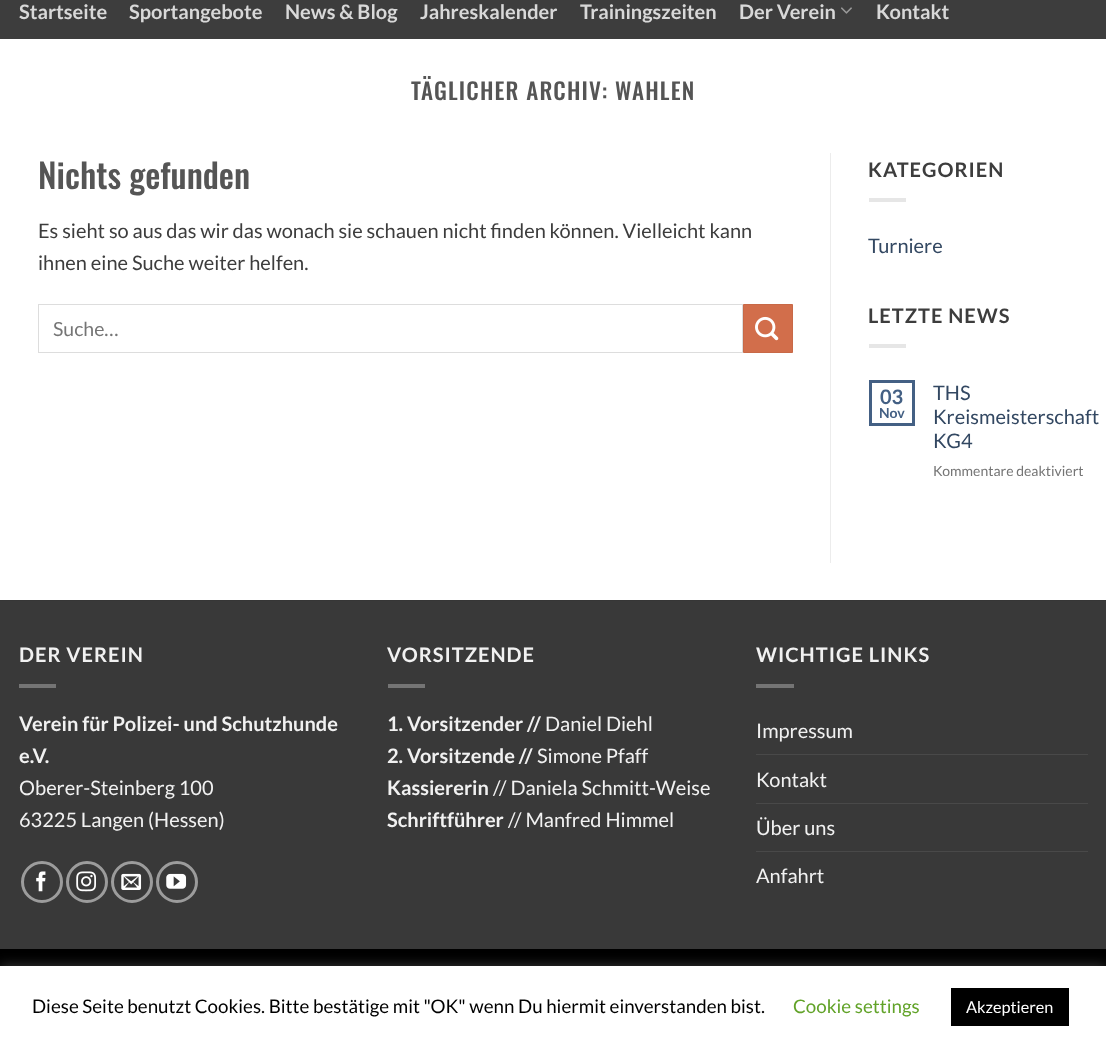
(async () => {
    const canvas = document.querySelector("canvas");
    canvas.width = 1106;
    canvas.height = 1047;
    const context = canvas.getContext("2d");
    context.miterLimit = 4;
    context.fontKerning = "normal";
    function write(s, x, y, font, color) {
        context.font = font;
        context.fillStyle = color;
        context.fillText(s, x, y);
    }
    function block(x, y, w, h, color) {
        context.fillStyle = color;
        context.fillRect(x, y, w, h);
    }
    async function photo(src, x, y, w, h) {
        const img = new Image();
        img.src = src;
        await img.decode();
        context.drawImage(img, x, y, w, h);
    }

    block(0, 0, 1106, 1047, "rgb(255, 255, 255)");
    block(0, 0, 1106, 39, "rgb(61, 61, 61)");
    write("Startseite", 19, 19, "bold 20px Lato", "rgb(216, 216, 216)");
    write("Sportangebote", 129, 19, "bold 20px Lato", "rgb(216, 216, 216)");
    write("News & Blog", 285, 19, "bold 20px Lato", "rgb(216, 216, 216)");
    write("Jahreskalender", 420, 19, "bold 20px Lato", "rgb(216, 216, 216)");
    write("Trainingszeiten", 580, 19, "bold 20px Lato", "rgb(216, 216, 216)");
    write("Der Verein", 739, 19, "bold 20px Lato", "rgb(216, 216, 216)");
    await photo("media/1.png", 841, 7, 11, 7);
    write("Kontakt", 876, 19, "bold 20px Lato", "rgb(216, 216, 216)");
    context.letterSpacing = "1.15px";
    write("TÄGLICHER ARCHIV: WAHLEN", 411, 100, "500 23px Oswald", "rgb(85, 85, 85)");
    context.letterSpacing = "0px";
    write("Nichts gefunden", 38, 189, "500 34px Oswald", "rgb(85, 85, 85)");
    write("Es sieht so aus das wir das wonach sie schauen nicht finden können. Vielleicht kann", 38, 238, "20px Lato", "rgb(61, 61, 61)");
    write("ihnen eine Suche weiter helfen.", 38, 270, "20px Lato", "rgb(61, 61, 61)");
    context.strokeStyle = "rgb(221, 221, 221)";
    context.strokeRect(38.5, 304.5, 704, 48);
    write("Suche…", 53, 336, "19.5px Lato", "rgb(117, 117, 117)");
    context.fillStyle = "rgb(210, 110, 75)";
    context.beginPath();
    context.rect(743.5, 304.5, 49, 48);
    context.fill();
    context.strokeStyle = "rgb(200, 105, 71)";
    context.stroke();
    await photo("media/2.png", 755, 316, 24, 25);
    block(830, 153, 1, 410, "rgb(236, 236, 236)");
    context.letterSpacing = "1px";
    write("KATEGORIEN", 868, 177, "bold 20px Lato", "rgb(61, 61, 61)");
    block(869, 198, 37, 4, "rgb(230, 230, 230)");
    context.letterSpacing = "0px";
    write("Turniere", 868, 253, "20px Lato", "rgb(51, 72, 98)");
    context.letterSpacing = "1px";
    write("LETZTE NEWS", 868, 323, "bold 20px Lato", "rgb(61, 61, 61)");
    block(869, 344, 37, 4, "rgb(230, 230, 230)");
    context.strokeStyle = "rgb(68, 96, 132)";
    context.lineWidth = 3;
    context.strokeRect(870.5, 381.5, 43, 43);
    context.letterSpacing = "0px";
    write("03", 880, 404, "bold 20px Lato", "rgb(68, 96, 132)");
    write("Nov", 879, 418, "bold 14px Lato", "rgb(68, 96, 132)");
    write("THS", 933, 400, "20px Lato", "rgb(51, 72, 98)");
    write("Kreismeisterschaft", 933, 424, "20px Lato", "rgb(51, 72, 98)");
    write("KG4", 933, 448, "20px Lato", "rgb(51, 72, 98)");
    write("Kommentare deaktiviert", 933, 476, "14px Lato", "rgb(117, 117, 117)");
    block(0, 601, 1106, 348, "rgb(57, 57, 57)");
    block(0, 600, 1106, 1, "rgb(54, 54, 54)");
    context.letterSpacing = "1px";
    write("DER VEREIN", 19, 662, "bold 20px Lato", "rgb(241, 241, 241)");
    block(19, 684, 37, 4, "rgb(116, 116, 116)");
    context.letterSpacing = "0px";
    write("Verein für Polizei- und Schutzhunde", 19, 731, "bold 20px Lato", "rgb(241, 241, 241)");
    write("e.V.", 19, 763, "bold 20px Lato", "rgb(241, 241, 241)");
    write("Oberer-Steinberg 100", 19, 795, "20px Lato", "rgb(241, 241, 241)");
    write("63225 Langen (Hessen)", 19, 827, "20px Lato", "rgb(241, 241, 241)");
    context.beginPath();
    context.arc(42, 882, 19.5, 0, Math.PI * 2);
    context.strokeStyle = "rgb(156, 156, 156)";
    context.stroke();
    await photo("media/3.png", 36, 871, 10, 21);
    context.beginPath();
    context.arc(87, 882, 19.5, 0, Math.PI * 2);
    context.stroke();
    await photo("media/4.png", 76, 871, 20, 21);
    context.beginPath();
    context.arc(132, 882, 19.5, 0, Math.PI * 2);
    context.stroke();
    await photo("media/5.png", 121, 873, 21, 17);
    context.beginPath();
    context.arc(177, 882, 19.5, 0, Math.PI * 2);
    context.stroke();
    await photo("media/6.png", 166, 873, 21, 16);
    context.letterSpacing = "1px";
    write("VORSITZENDE", 387, 662, "bold 20px Lato", "rgb(241, 241, 241)");
    block(388, 684, 37, 4, "rgb(116, 116, 116)");
    context.letterSpacing = "0px";
    write("1. Vorsitzender //", 387, 731, "bold 20px Lato", "rgb(241, 241, 241)");
    write("Daniel Diehl", 545, 731, "20px Lato", "rgb(241, 241, 241)");
    write("2. Vorsitzende //", 387, 763, "bold 20px Lato", "rgb(241, 241, 241)");
    write("Simone Pfaff", 537, 763, "20px Lato", "rgb(241, 241, 241)");
    write("Kassiererin", 387, 795, "bold 20px Lato", "rgb(241, 241, 241)");
    write("// Daniela Schmitt-Weise", 493, 795, "20px Lato", "rgb(241, 241, 241)");
    write("Schriftführer", 387, 827, "bold 20px Lato", "rgb(241, 241, 241)");
    write("// Manfred Himmel", 508, 827, "20px Lato", "rgb(241, 241, 241)");
    context.letterSpacing = "1px";
    write("WICHTIGE LINKS", 756, 662, "bold 20px Lato", "rgb(241, 241, 241)");
    block(756, 684, 38, 4, "rgb(116, 116, 116)");
    context.letterSpacing = "0px";
    write("Impressum", 756, 738, "20px Lato", "rgb(241, 241, 241)");
    block(756, 754, 332, 1, "rgb(73, 73, 73)");
    write("Kontakt", 756, 787, "20px Lato", "rgb(241, 241, 241)");
    block(756, 803, 332, 1, "rgb(73, 73, 73)");
    write("Über uns", 756, 835, "20px Lato", "rgb(241, 241, 241)");
    block(756, 851, 332, 1, "rgb(73, 73, 73)");
    write("Anfahrt", 756, 883, "20px Lato", "rgb(241, 241, 241)");
    block(0, 949, 1106, 17, "rgb(0, 0, 0)");
    context.fillStyle = "rgba(172, 171, 171, 0.3)";
    context.filter = "blur(6px)";
    context.beginPath();
    context.rect(0, 965, 1106, 81);
    context.fill();
    context.filter = "none";
    block(0, 966, 1106, 81, "rgb(255, 255, 255)");
    write("Diese Seite benutzt Cookies. Bitte bestätige mit \"OK\" wenn Du hiermit einverstanden bist.", 32, 1013, "18.75px Lato", "rgb(0, 0, 0)");
    write("Cookie settings", 793, 1013, "18.75px Lato", "rgb(98, 163, 41)");
    block(951, 988, 118, 38, "rgb(0, 0, 0)");
    write("Akzeptieren", 966, 1013, "16.25px Lato", "rgb(255, 255, 255)");
})();
